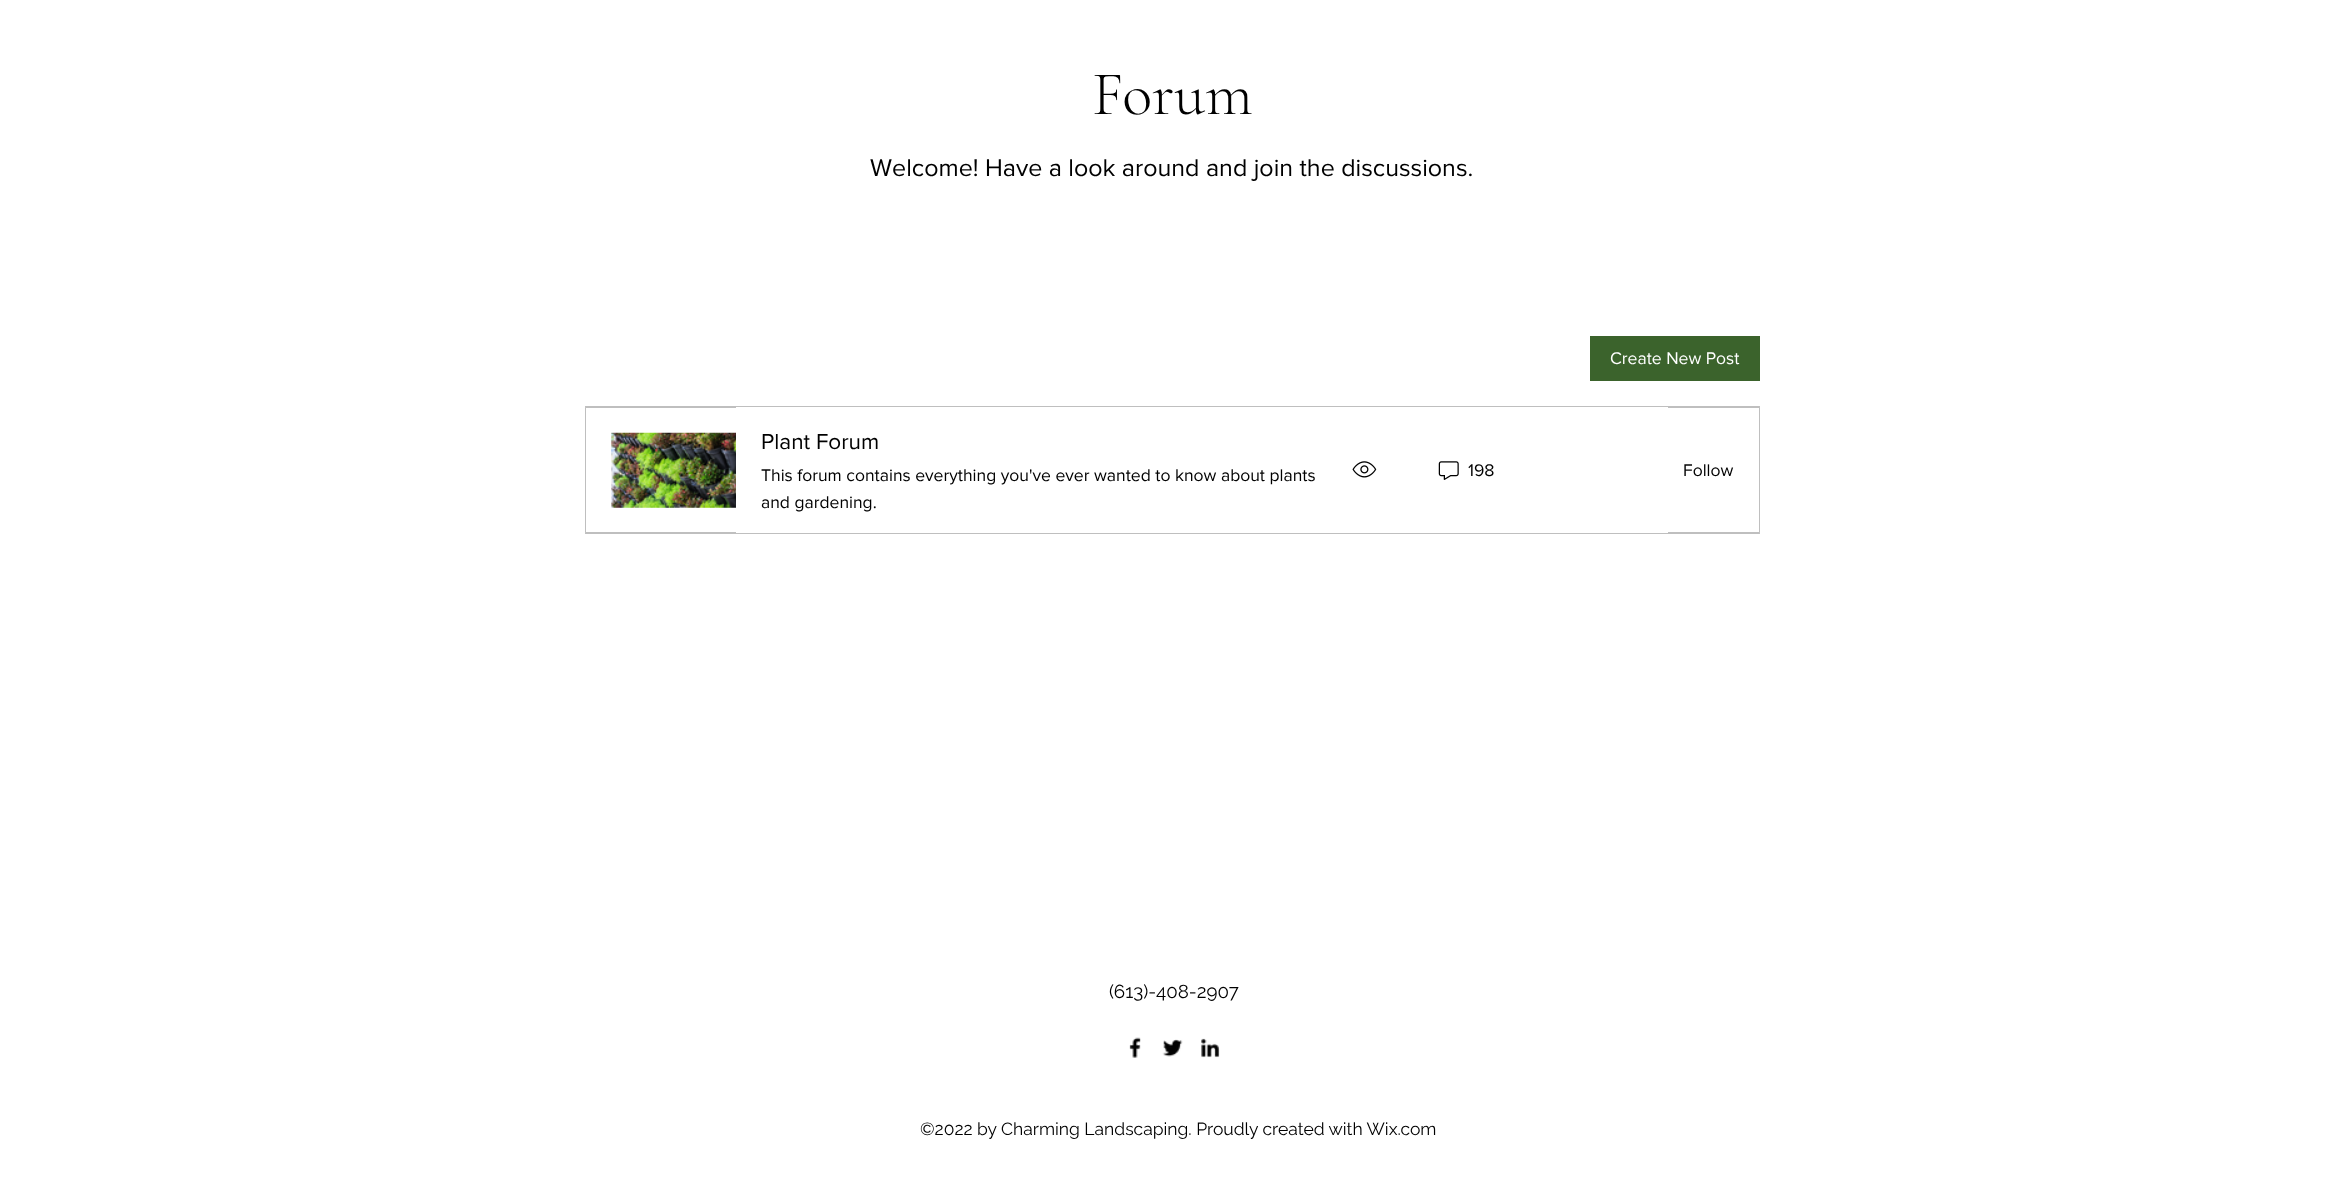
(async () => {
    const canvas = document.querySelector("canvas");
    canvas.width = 2343;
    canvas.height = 1185;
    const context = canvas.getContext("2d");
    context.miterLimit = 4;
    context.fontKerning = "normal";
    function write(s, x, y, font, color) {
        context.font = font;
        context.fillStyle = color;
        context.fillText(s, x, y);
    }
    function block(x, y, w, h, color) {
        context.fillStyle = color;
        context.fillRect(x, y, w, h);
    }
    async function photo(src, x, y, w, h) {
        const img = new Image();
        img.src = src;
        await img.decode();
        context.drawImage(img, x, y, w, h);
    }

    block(0, 0, 2343, 1185, "rgb(255, 255, 255)");
    write("Forum", 1092, 114, "300 62.5px Cormorant Garamond", "rgb(0, 0, 0)");
    write("Welcome! Have a look around and join the discussions.", 870, 176, "25px 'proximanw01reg'", "rgb(0, 0, 0)");
    block(1590, 336, 170, 45, "rgb(59, 99, 44)");
    write("Create New Post", 1610, 364, "17.5px 'proximanw01reg'", "rgb(255, 255, 255)");
    context.fillStyle = "rgb(191, 191, 191)";
    context.beginPath();
    context.moveTo(585, 406);
    context.lineTo(736, 406);
    context.lineTo(736, 408);
    context.lineTo(586, 408);
    context.closePath();
    context.fill();
    context.beginPath();
    context.moveTo(736, 534);
    context.lineTo(585, 534);
    context.lineTo(586, 532);
    context.lineTo(736, 532);
    context.closePath();
    context.fill();
    context.fillStyle = "rgba(0, 0, 0, 0.25)";
    context.beginPath();
    context.moveTo(585, 534);
    context.lineTo(585, 406);
    context.lineTo(586, 408);
    context.lineTo(586, 532);
    context.closePath();
    context.fill();
    await photo("media/1.png", 611, 432, 125, 76);
    block(736, 406, 932, 1, "rgb(191, 191, 191)");
    block(736, 533, 932, 1, "rgb(191, 191, 191)");
    await photo("media/2.png", 1352, 461, 25, 17);
    write("Plant Forum", 761, 449, "22.5px 'proximanw01reg'", "rgb(0, 0, 0)");
    write("This forum contains everything you've ever wanted to know about plants", 761, 481, "17.5px 'proximanw01reg'", "rgb(0, 0, 0)");
    write("and gardening.", 761, 508, "17.5px 'proximanw01reg'", "rgb(0, 0, 0)");
    await photo("media/3.png", 1438, 461, 21, 19);
    write("198", 1468, 476, "17.5px 'proximanw01reg'", "rgb(0, 0, 0)");
    context.fillStyle = "rgb(191, 191, 191)";
    context.beginPath();
    context.moveTo(1668, 406);
    context.lineTo(1760, 406);
    context.lineTo(1759, 408);
    context.lineTo(1668, 408);
    context.closePath();
    context.fill();
    context.fillStyle = "rgba(0, 0, 0, 0.25)";
    context.beginPath();
    context.moveTo(1760, 406);
    context.lineTo(1760, 534);
    context.lineTo(1759, 532);
    context.lineTo(1759, 408);
    context.closePath();
    context.fill();
    context.beginPath();
    context.moveTo(1760, 534);
    context.lineTo(1668, 534);
    context.lineTo(1668, 532);
    context.lineTo(1759, 532);
    context.closePath();
    context.fill();
    write("Follow", 1683, 476, "17.5px 'proximanw01reg'", "rgb(0, 0, 0)");
    write("(613)-408-2907", 1109, 998, "18.75px Raleway", "rgb(0, 0, 0)");
    await photo("media/4.png", 1129, 1037, 12, 21);
    await photo("media/5.png", 1162, 1039, 21, 18);
    await photo("media/6.png", 1201, 1038, 19, 20);
    write("©2022 by Charming Landscaping. Proudly created with Wix.com", 920, 1135, "17.5px Raleway", "rgb(0, 0, 0)");
})();
